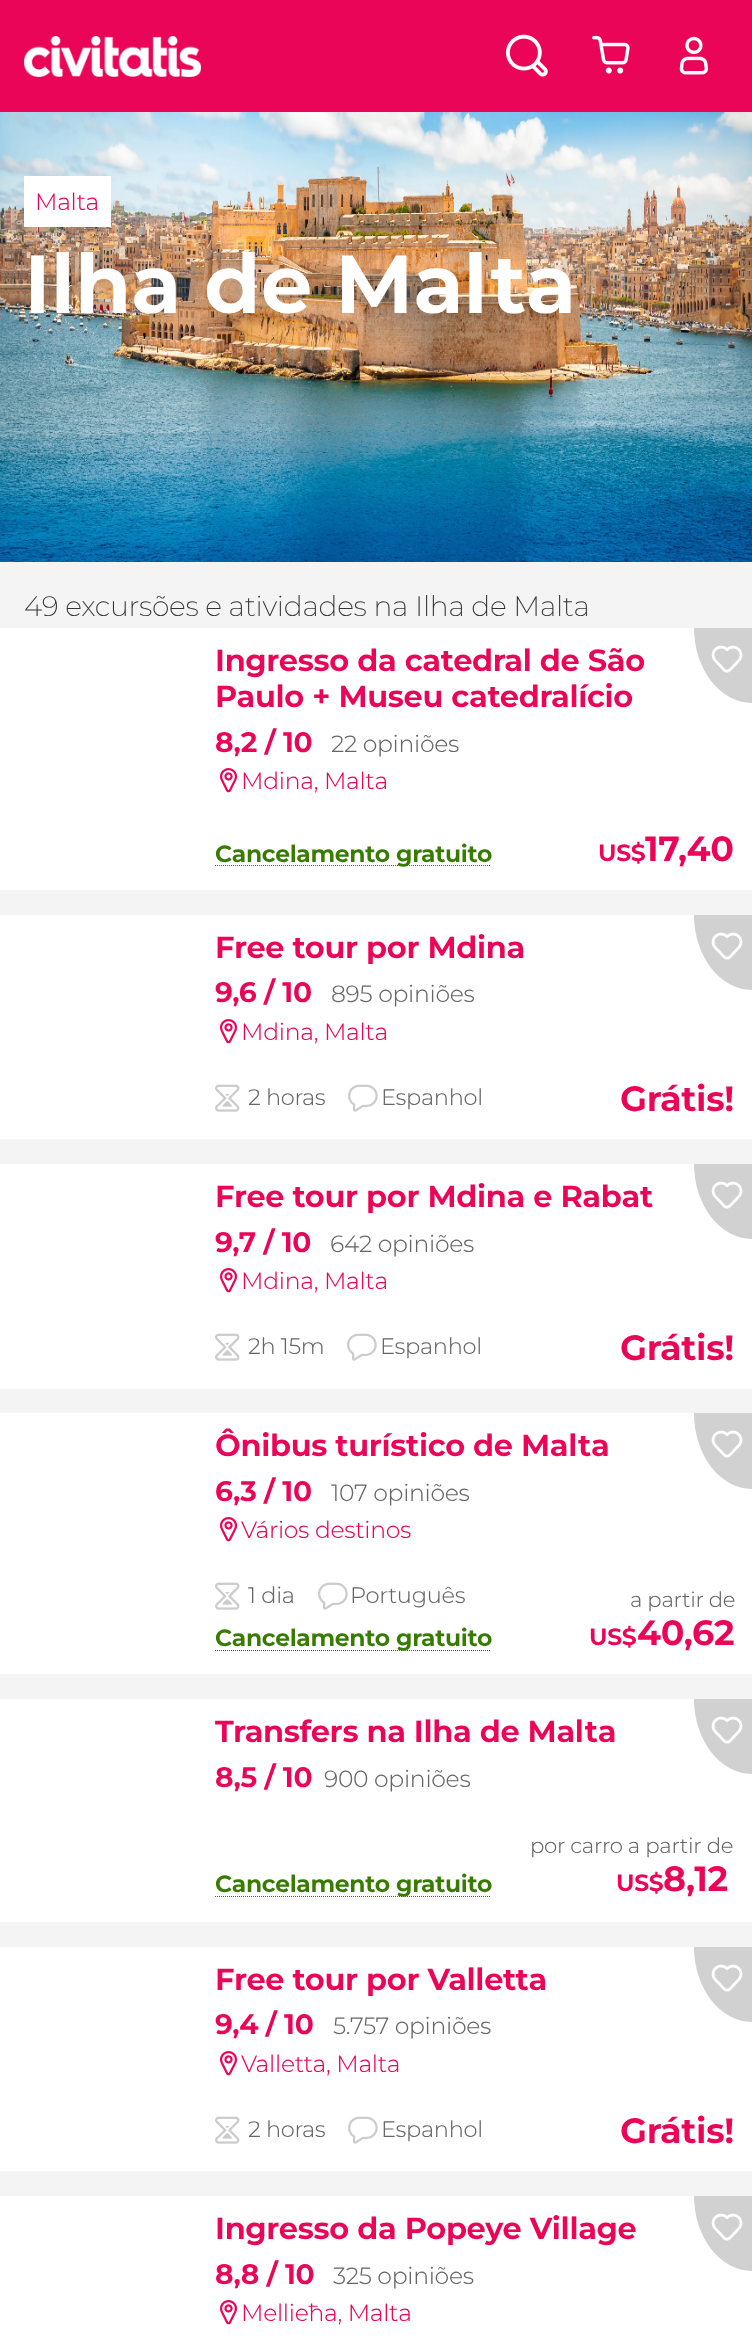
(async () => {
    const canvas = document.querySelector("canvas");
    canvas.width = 752;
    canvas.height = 2337;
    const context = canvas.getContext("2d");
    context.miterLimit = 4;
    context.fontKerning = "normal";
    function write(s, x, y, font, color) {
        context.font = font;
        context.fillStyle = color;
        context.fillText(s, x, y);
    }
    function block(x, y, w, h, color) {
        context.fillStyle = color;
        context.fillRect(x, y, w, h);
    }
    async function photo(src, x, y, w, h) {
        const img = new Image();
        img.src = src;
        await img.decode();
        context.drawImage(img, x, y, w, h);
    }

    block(0, 0, 752, 2337, "rgb(245, 244, 245)");
    block(0, 0, 752, 112, "rgb(234, 5, 88)");
    await photo("media/1.png", 24, 36, 177, 41);
    await photo("media/2.png", 506, 34, 42, 43);
    await photo("media/3.png", 592, 35, 38, 39);
    await photo("media/4.png", 679, 36, 29, 39);
    await photo("media/5.png", 0, 112, 752, 450);
    block(24, 176, 87, 51, "rgb(255, 255, 255)");
    context.letterSpacing = "-0.3px";
    write("Malta", 35, 210, "300 23.5px Montserrat", "rgb(234, 5, 88)");
    write("Ilha de Malta", 24, 313, "bold 82.25px Montserrat", "rgb(255, 255, 255)");
    write("49 excursões e atividades na Ilha de Malta", 24, 616, "200 28.2px Montserrat", "rgb(51, 51, 51)");
    block(0, 628, 752, 262, "rgb(255, 255, 255)");
    context.fillStyle = "rgb(210, 209, 209)";
    context.beginPath();
    context.moveTo(694, 628);
    context.lineTo(752, 628);
    context.lineTo(752, 703);
    context.bezierCurveTo(720, 703, 694, 669, 694, 628);
    context.closePath();
    context.fill();
    await photo("media/6.png", 711, 645, 32, 28);
    write("Ingresso da catedral de São", 215, 671, "bold 30.5px Montserrat", "rgb(234, 5, 88)");
    write("Paulo + Museu catedralício", 215, 707, "bold 30.5px Montserrat", "rgb(234, 5, 88)");
    write("8,2 / 10", 215, 752, "bold 28.2px Montserrat", "rgb(234, 5, 88)");
    write("22 opiniões", 331, 752, "300 23.5px Montserrat", "rgb(102, 102, 102)");
    await photo("media/7.png", 220, 768, 18, 25);
    write("Mdina, Malta", 241, 789, "300 23.5px Montserrat", "rgb(234, 5, 88)");
    context.beginPath();
    context.moveTo(215, 865.5);
    context.lineTo(491, 865.5);
    context.strokeStyle = "rgb(55, 124, 1)";
    context.setLineDash([1, 1]);
    context.stroke();
    write("Cancelamento gratuito", 215, 862, "bold 23.5px Montserrat", "rgb(55, 124, 1)");
    write("US$", 598, 861, "bold 23.5px Montserrat", "rgb(234, 5, 88)");
    write("17,40", 645, 861, "bold 35px Montserrat", "rgb(234, 5, 88)");
    block(0, 915, 752, 224, "rgb(255, 255, 255)");
    context.fillStyle = "rgb(210, 209, 209)";
    context.beginPath();
    context.moveTo(694, 915);
    context.lineTo(752, 915);
    context.lineTo(752, 990);
    context.bezierCurveTo(720, 990, 694, 956, 694, 915);
    context.closePath();
    context.fill();
    await photo("media/6.png", 711, 932, 32, 28);
    write("Free tour por Mdina", 215, 958, "bold 30.5px Montserrat", "rgb(234, 5, 88)");
    write("9,6 / 10", 215, 1002, "bold 28.2px Montserrat", "rgb(234, 5, 88)");
    write("895 opiniões", 331, 1002, "300 23.5px Montserrat", "rgb(102, 102, 102)");
    await photo("media/7.png", 220, 1019, 18, 25);
    write("Mdina, Malta", 241, 1040, "300 23.5px Montserrat", "rgb(234, 5, 88)");
    await photo("media/8.png", 215, 1084, 25, 28);
    write("2 horas", 248, 1105, "300 22.5px Montserrat", "rgb(102, 102, 102)");
    await photo("media/9.png", 348, 1084, 30, 28);
    write("Espanhol", 381, 1105, "300 22.5px Montserrat", "rgb(102, 102, 102)");
    write("Grátis!", 620, 1111, "bold 35px Montserrat", "rgb(234, 5, 88)");
    block(0, 1164, 752, 225, "rgb(255, 255, 255)");
    context.fillStyle = "rgb(210, 209, 209)";
    context.beginPath();
    context.moveTo(694, 1164);
    context.lineTo(752, 1164);
    context.lineTo(752, 1239);
    context.bezierCurveTo(720, 1239, 694, 1205, 694, 1164);
    context.closePath();
    context.fill();
    await photo("media/6.png", 711, 1181, 32, 28);
    write("Free tour por Mdina e Rabat", 215, 1207, "bold 30.5px Montserrat", "rgb(234, 5, 88)");
    write("9,7 / 10", 215, 1252, "bold 28.2px Montserrat", "rgb(234, 5, 88)");
    write("642 opiniões", 330, 1252, "300 23.5px Montserrat", "rgb(102, 102, 102)");
    await photo("media/7.png", 220, 1268, 18, 25);
    write("Mdina, Malta", 241, 1289, "300 23.5px Montserrat", "rgb(234, 5, 88)");
    await photo("media/8.png", 215, 1333, 25, 28);
    write("2h 15m", 248, 1354, "300 22.5px Montserrat", "rgb(102, 102, 102)");
    await photo("media/9.png", 347, 1333, 30, 28);
    write("Espanhol", 380, 1354, "300 22.5px Montserrat", "rgb(102, 102, 102)");
    write("Grátis!", 620, 1360, "bold 35px Montserrat", "rgb(234, 5, 88)");
    block(0, 1413, 752, 261, "rgb(255, 255, 255)");
    context.fillStyle = "rgb(210, 209, 209)";
    context.beginPath();
    context.moveTo(694, 1413);
    context.lineTo(752, 1413);
    context.lineTo(752, 1489);
    context.bezierCurveTo(720, 1489, 694, 1455, 694, 1413);
    context.closePath();
    context.fill();
    await photo("media/6.png", 711, 1430, 32, 28);
    write("Ônibus turístico de Malta", 215, 1456, "bold 30.5px Montserrat", "rgb(234, 5, 88)");
    write("6,3 / 10", 215, 1501, "bold 28.2px Montserrat", "rgb(234, 5, 88)");
    write("107 opiniões", 331, 1501, "300 23.5px Montserrat", "rgb(102, 102, 102)");
    await photo("media/7.png", 220, 1517, 18, 25);
    write("Vários destinos", 241, 1538, "300 23.5px Montserrat", "rgb(234, 5, 88)");
    await photo("media/8.png", 215, 1582, 25, 28);
    write("1 dia", 248, 1603, "300 22.5px Montserrat", "rgb(102, 102, 102)");
    await photo("media/9.png", 318, 1582, 30, 28);
    write("Português", 350, 1603, "300 22.5px Montserrat", "rgb(102, 102, 102)");
    context.beginPath();
    context.moveTo(215, 1650.5);
    context.lineTo(491, 1650.5);
    context.stroke();
    write("Cancelamento gratuito", 215, 1646, "bold 23.5px Montserrat", "rgb(55, 124, 1)");
    write("a partir de", 630, 1607, "300 21.25px Montserrat", "rgb(102, 102, 102)");
    write("US$", 589, 1645, "bold 23.5px Montserrat", "rgb(234, 5, 88)");
    write("40,62", 637, 1645, "bold 35px Montserrat", "rgb(234, 5, 88)");
    block(0, 1699, 752, 223, "rgb(255, 255, 255)");
    context.fillStyle = "rgb(210, 209, 209)";
    context.beginPath();
    context.moveTo(694, 1699);
    context.lineTo(752, 1699);
    context.lineTo(752, 1774);
    context.bezierCurveTo(720, 1774, 694, 1740, 694, 1699);
    context.closePath();
    context.fill();
    await photo("media/6.png", 711, 1716, 32, 28);
    write("Transfers na Ilha de Malta", 215, 1742, "bold 30.5px Montserrat", "rgb(234, 5, 88)");
    write("8,5 / 10", 215, 1787, "bold 28.2px Montserrat", "rgb(234, 5, 88)");
    write("900 opiniões", 324, 1787, "300 23.5px Montserrat", "rgb(102, 102, 102)");
    context.beginPath();
    context.moveTo(215, 1896.5);
    context.lineTo(491, 1896.5);
    context.stroke();
    write("Cancelamento gratuito", 215, 1892, "bold 23.5px Montserrat", "rgb(55, 124, 1)");
    write("por carro a partir de", 530, 1853, "300 21.25px Montserrat", "rgb(102, 102, 102)");
    write("US$", 616, 1891, "bold 23.5px Montserrat", "rgb(234, 5, 88)");
    write("8,12", 663, 1891, "bold 35px Montserrat", "rgb(234, 5, 88)");
    block(0, 1947, 752, 224, "rgb(255, 255, 255)");
    context.fillStyle = "rgb(210, 209, 209)";
    context.beginPath();
    context.moveTo(694, 1947);
    context.lineTo(752, 1947);
    context.lineTo(752, 2022);
    context.bezierCurveTo(720, 2022, 694, 1988, 694, 1947);
    context.closePath();
    context.fill();
    await photo("media/6.png", 711, 1964, 32, 28);
    write("Free tour por Valletta", 215, 1990, "bold 30.5px Montserrat", "rgb(234, 5, 88)");
    write("9,4 / 10", 215, 2034, "bold 28.2px Montserrat", "rgb(234, 5, 88)");
    write("5.757 opiniões", 333, 2034, "300 23.5px Montserrat", "rgb(102, 102, 102)");
    await photo("media/7.png", 220, 2051, 18, 25);
    write("Valletta, Malta", 241, 2072, "300 23.5px Montserrat", "rgb(234, 5, 88)");
    await photo("media/8.png", 215, 2116, 25, 28);
    write("2 horas", 248, 2137, "300 22.5px Montserrat", "rgb(102, 102, 102)");
    await photo("media/9.png", 348, 2116, 30, 28);
    write("Espanhol", 381, 2137, "300 22.5px Montserrat", "rgb(102, 102, 102)");
    write("Grátis!", 620, 2143, "bold 35px Montserrat", "rgb(234, 5, 88)");
    block(0, 2196, 752, 141, "rgb(255, 255, 255)");
    write("Ingresso da Popeye Village", 215, 2239, "bold 30.5px Montserrat", "rgb(234, 5, 88)");
    write("8,8 / 10", 215, 2284, "bold 28.2px Montserrat", "rgb(234, 5, 88)");
    write("325 opiniões", 333, 2284, "300 23.5px Montserrat", "rgb(102, 102, 102)");
    await photo("media/7.png", 220, 2300, 18, 25);
    write("Mellieħa, Malta", 241, 2321, "300 23.5px Montserrat", "rgb(234, 5, 88)");
    context.fillStyle = "rgb(210, 209, 209)";
    context.beginPath();
    context.moveTo(694, 2196);
    context.lineTo(752, 2196);
    context.lineTo(752, 2271);
    context.bezierCurveTo(720, 2271, 694, 2237, 694, 2196);
    context.closePath();
    context.fill();
    await photo("media/6.png", 711, 2213, 32, 28);
})();
